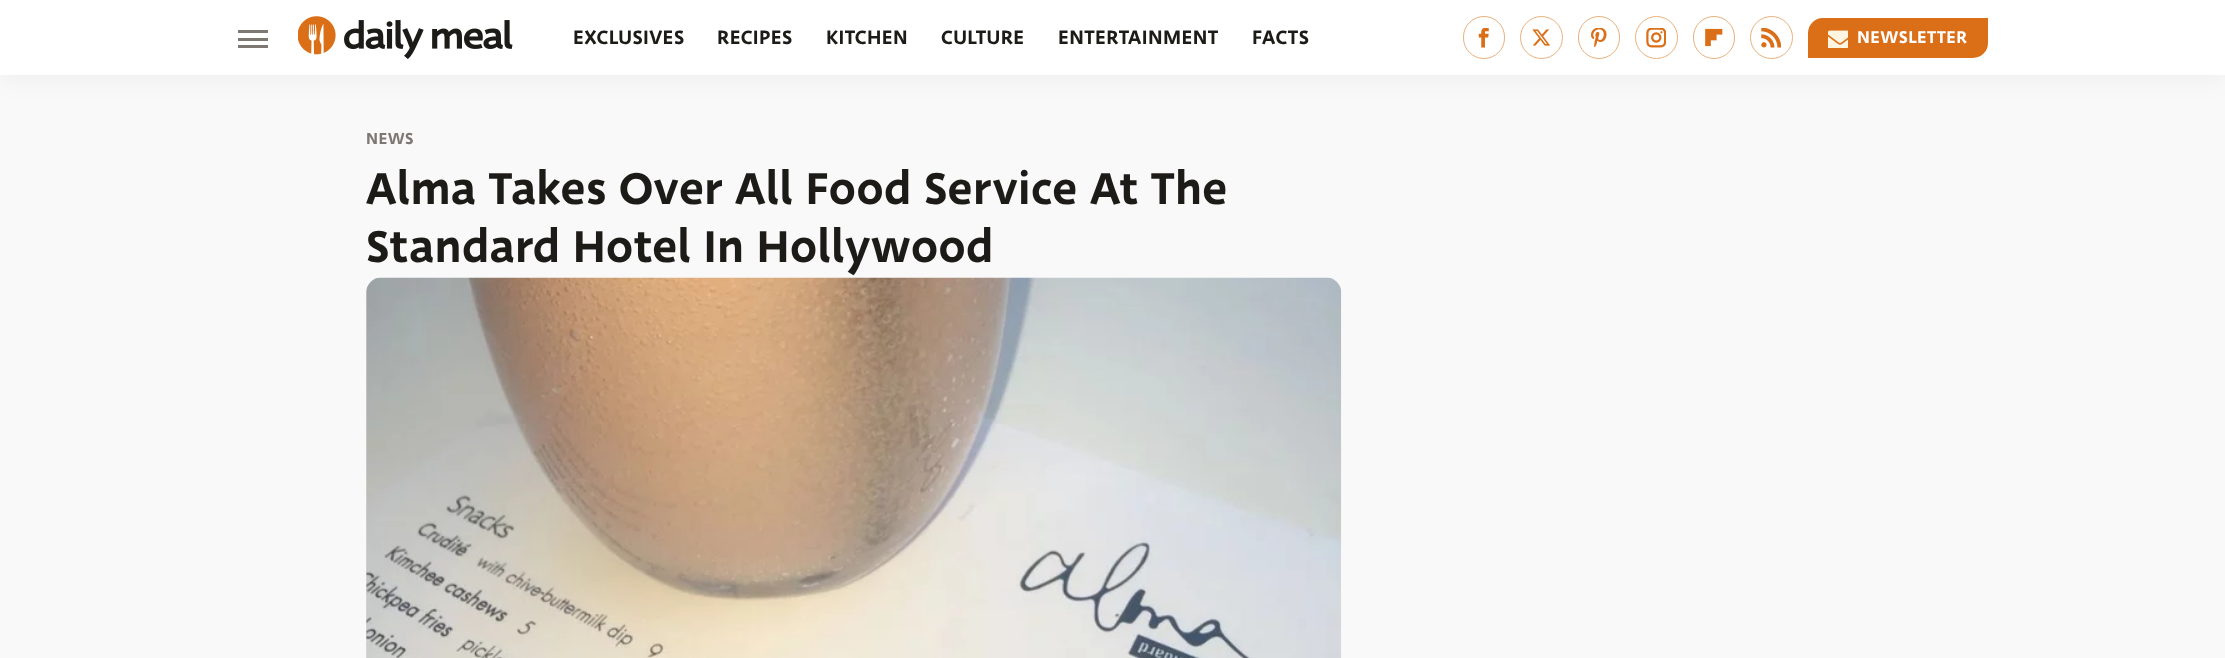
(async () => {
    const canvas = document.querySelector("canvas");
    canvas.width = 2225;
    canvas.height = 658;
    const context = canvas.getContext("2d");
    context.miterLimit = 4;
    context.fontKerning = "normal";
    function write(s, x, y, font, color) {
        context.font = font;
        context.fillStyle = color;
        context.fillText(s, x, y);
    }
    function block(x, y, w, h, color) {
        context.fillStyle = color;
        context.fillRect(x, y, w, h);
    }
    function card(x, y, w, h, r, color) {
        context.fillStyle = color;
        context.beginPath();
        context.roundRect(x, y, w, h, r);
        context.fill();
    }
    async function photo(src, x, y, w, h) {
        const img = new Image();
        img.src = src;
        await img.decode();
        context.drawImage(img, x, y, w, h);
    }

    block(0, 0, 2225, 658, "rgb(250, 249, 249)");
    context.fillStyle = "rgba(0, 0, 0, 0.05)";
    context.filter = "blur(12.5px)";
    context.beginPath();
    context.rect(0, 3, 2225, 75);
    context.fill();
    context.filter = "none";
    block(0, 0, 2225, 75, "rgb(255, 255, 255)");
    block(238, 30, 30, 3, "rgb(126, 120, 115)");
    block(238, 38, 30, 3, "rgb(126, 120, 115)");
    block(238, 45, 30, 3, "rgb(126, 120, 115)");
    await photo("media/1.png", 298, 16, 215, 43);
    context.letterSpacing = "0.4px";
    write("EXCLUSIVES", 573, 44, "500 21.25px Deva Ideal", "rgb(28, 27, 24)");
    write("RECIPES", 717, 44, "500 21.25px Deva Ideal", "rgb(28, 27, 24)");
    write("KITCHEN", 826, 44, "500 21.25px Deva Ideal", "rgb(28, 27, 24)");
    write("CULTURE", 941, 44, "500 21.25px Deva Ideal", "rgb(28, 27, 24)");
    write("ENTERTAINMENT", 1058, 44, "500 21.25px Deva Ideal", "rgb(28, 27, 24)");
    write("FACTS", 1252, 44, "500 21.25px Deva Ideal", "rgb(28, 27, 24)");
    context.beginPath();
    context.roundRect(1463.5, 16.5, 41, 42, 20.5);
    context.strokeStyle = "rgb(232, 177, 125)";
    context.stroke();
    await photo("media/2.png", 1478, 28, 11, 20);
    context.beginPath();
    context.arc(1541.5, 37.5, 21, 0, Math.PI * 2);
    context.stroke();
    await photo("media/3.png", 1532, 29, 19, 17);
    context.beginPath();
    context.roundRect(1578.5, 16.5, 41, 42, 20.5);
    context.stroke();
    await photo("media/4.png", 1591, 28, 16, 20);
    context.beginPath();
    context.arc(1656.5, 37.5, 21, 0, Math.PI * 2);
    context.stroke();
    await photo("media/5.png", 1646, 28, 20, 20);
    context.beginPath();
    context.roundRect(1693.5, 16.5, 41, 42, 20.5);
    context.stroke();
    await photo("media/6.png", 1705, 28, 18, 19);
    context.beginPath();
    context.arc(1771.5, 37.5, 21, 0, Math.PI * 2);
    context.stroke();
    await photo("media/7.png", 1761, 28, 20, 20);
    context.fillStyle = "rgb(218, 111, 24)";
    context.beginPath();
    context.roundRect(1808, 18, 180, 40, [15, 0, 15, 0]);
    context.fill();
    await photo("media/8.png", 1828, 30, 20, 18);
    write("NEWSLETTER", 1857, 43, "500 18.75px Deva Ideal", "rgb(255, 255, 255)");
    write("NEWS", 366, 144, "500 17.5px Deva Ideal", "rgb(126, 120, 115)");
    context.letterSpacing = "0px";
    write("Alma Takes Over All Food Service At The", 366, 204, "500 48.75px Deva Ideal", "rgb(28, 27, 24)");
    write("Standard Hotel In Hollywood", 366, 262, "500 48.75px Deva Ideal", "rgb(28, 27, 24)");
    card(366, 278, 975, 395, 15, "rgb(226, 221, 219)");
    await photo("media/9.png", 366, 277, 976, 381);
})();
